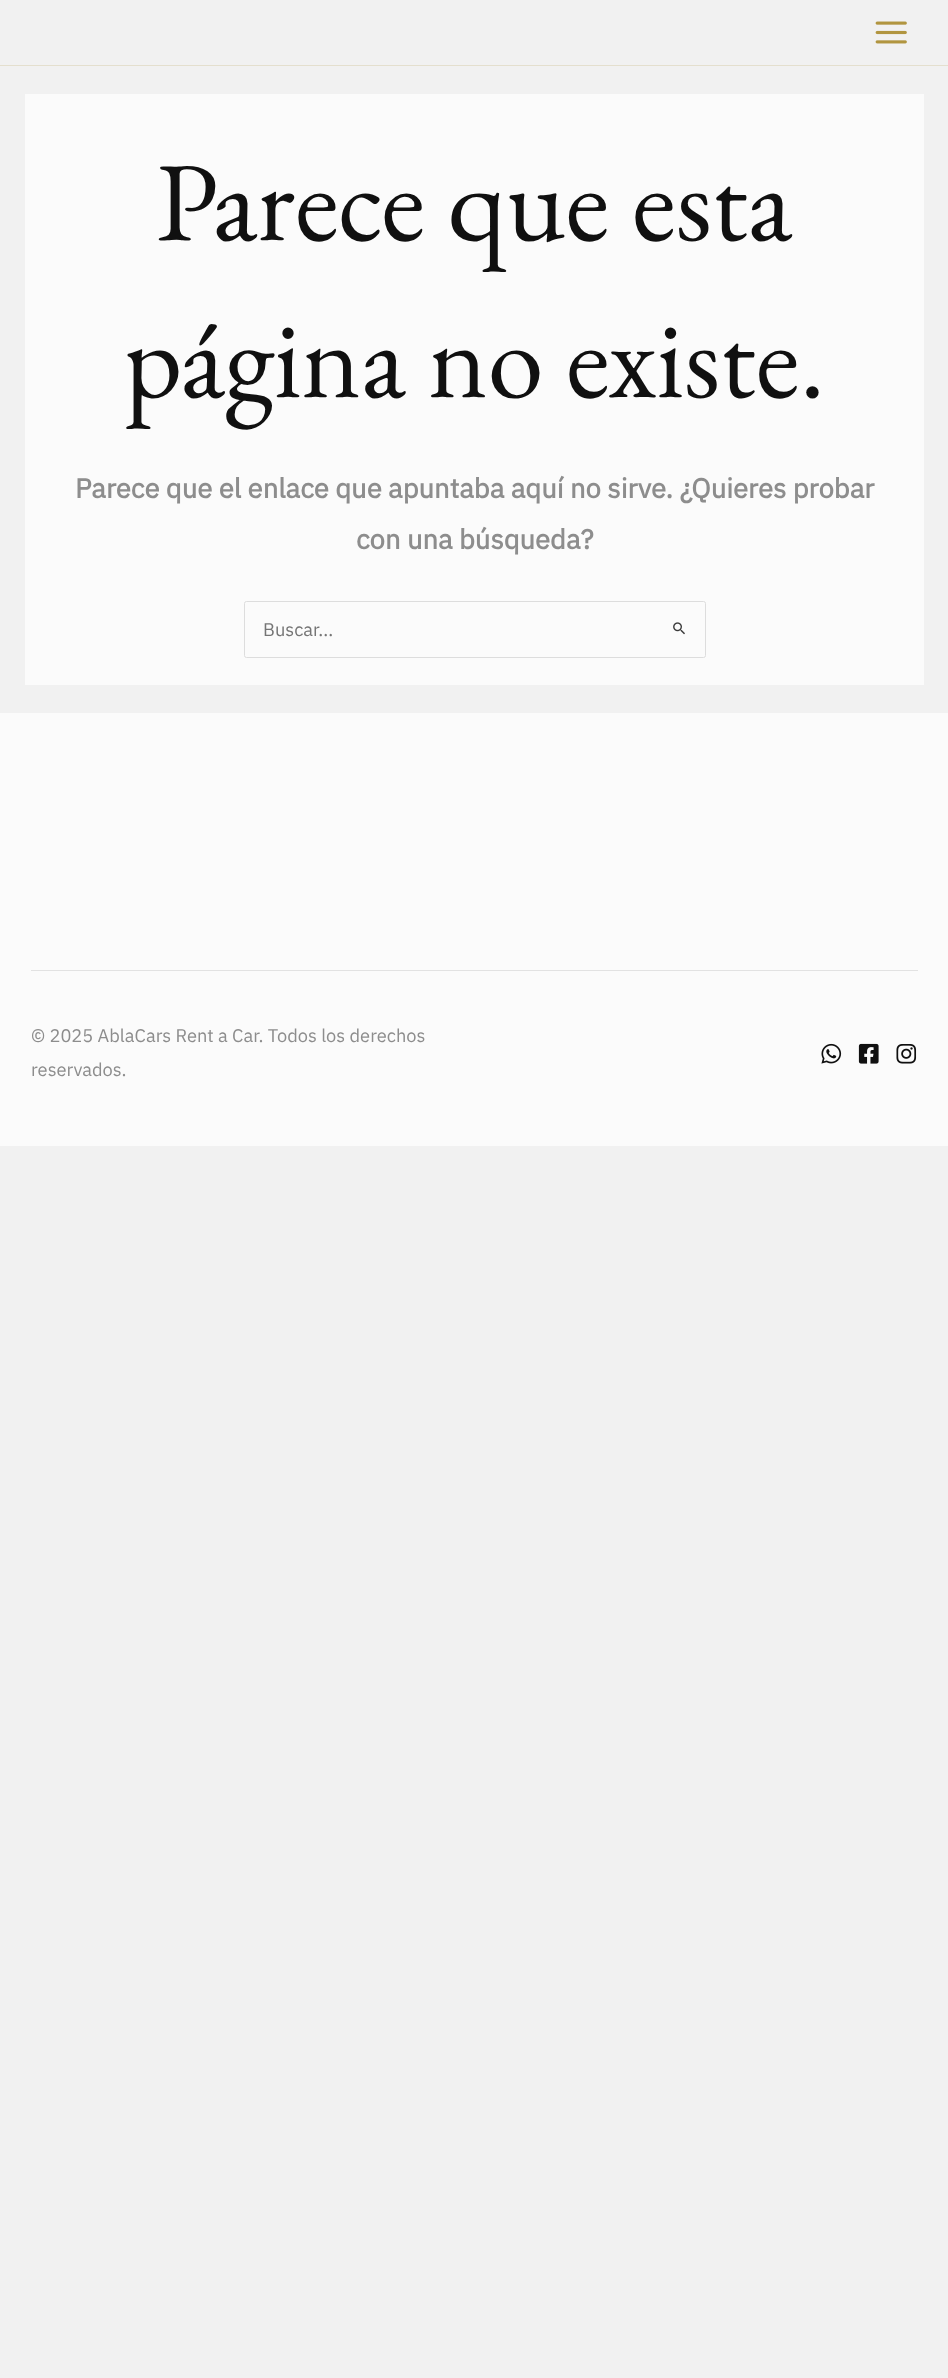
(async () => {
    const canvas = document.querySelector("canvas");
    canvas.width = 948;
    canvas.height = 2378;
    const context = canvas.getContext("2d");
    context.miterLimit = 4;
    context.fontKerning = "normal";
    function write(s, x, y, font, color) {
        context.font = font;
        context.fillStyle = color;
        context.fillText(s, x, y);
    }
    function block(x, y, w, h, color) {
        context.fillStyle = color;
        context.fillRect(x, y, w, h);
    }
    async function photo(src, x, y, w, h) {
        const img = new Image();
        img.src = src;
        await img.decode();
        context.drawImage(img, x, y, w, h);
    }

    block(0, 0, 948, 2378, "rgb(241, 241, 241)");
    block(0, 65, 948, 1, "rgb(228, 223, 206)");
    await photo("media/1.png", 875, 21, 32, 23);
    block(25, 94, 899, 591, "rgb(251, 251, 251)");
    write("Parece que esta", 156, 240, "112.5px EB Garamond", "rgb(16, 16, 16)");
    write("página no existe.", 124, 397, "112.5px EB Garamond", "rgb(16, 16, 16)");
    write("Parece que el enlace que apuntaba aquí no sirve. ¿Quieres probar", 75, 498, "bold 27.35px IBM Plex Sans", "rgb(141, 141, 141)");
    write("con una búsqueda?", 356, 549, "bold 27.35px IBM Plex Sans", "rgb(141, 141, 141)");
    context.beginPath();
    context.roundRect(244.5, 601.5, 461, 56, 2);
    context.strokeStyle = "rgb(221, 221, 221)";
    context.stroke();
    write("Buscar...", 263, 636, "18.25px IBM Plex Sans", "rgb(117, 117, 117)");
    await photo("media/2.png", 673, 622, 12, 13);
    block(0, 713, 948, 433, "rgb(251, 251, 251)");
    block(31, 970, 887, 1, "rgb(226, 226, 226)");
    write("© 2025 AblaCars Rent a Car. Todos los derechos", 31, 1042, "18.25px IBM Plex Sans", "rgb(141, 141, 141)");
    write("reservados.", 31, 1076, "18.25px IBM Plex Sans", "rgb(141, 141, 141)");
    await photo("media/3.png", 821, 1043, 21, 21);
    await photo("media/4.png", 858, 1043, 21, 21);
    await photo("media/5.png", 896, 1044, 21, 20);
})();
